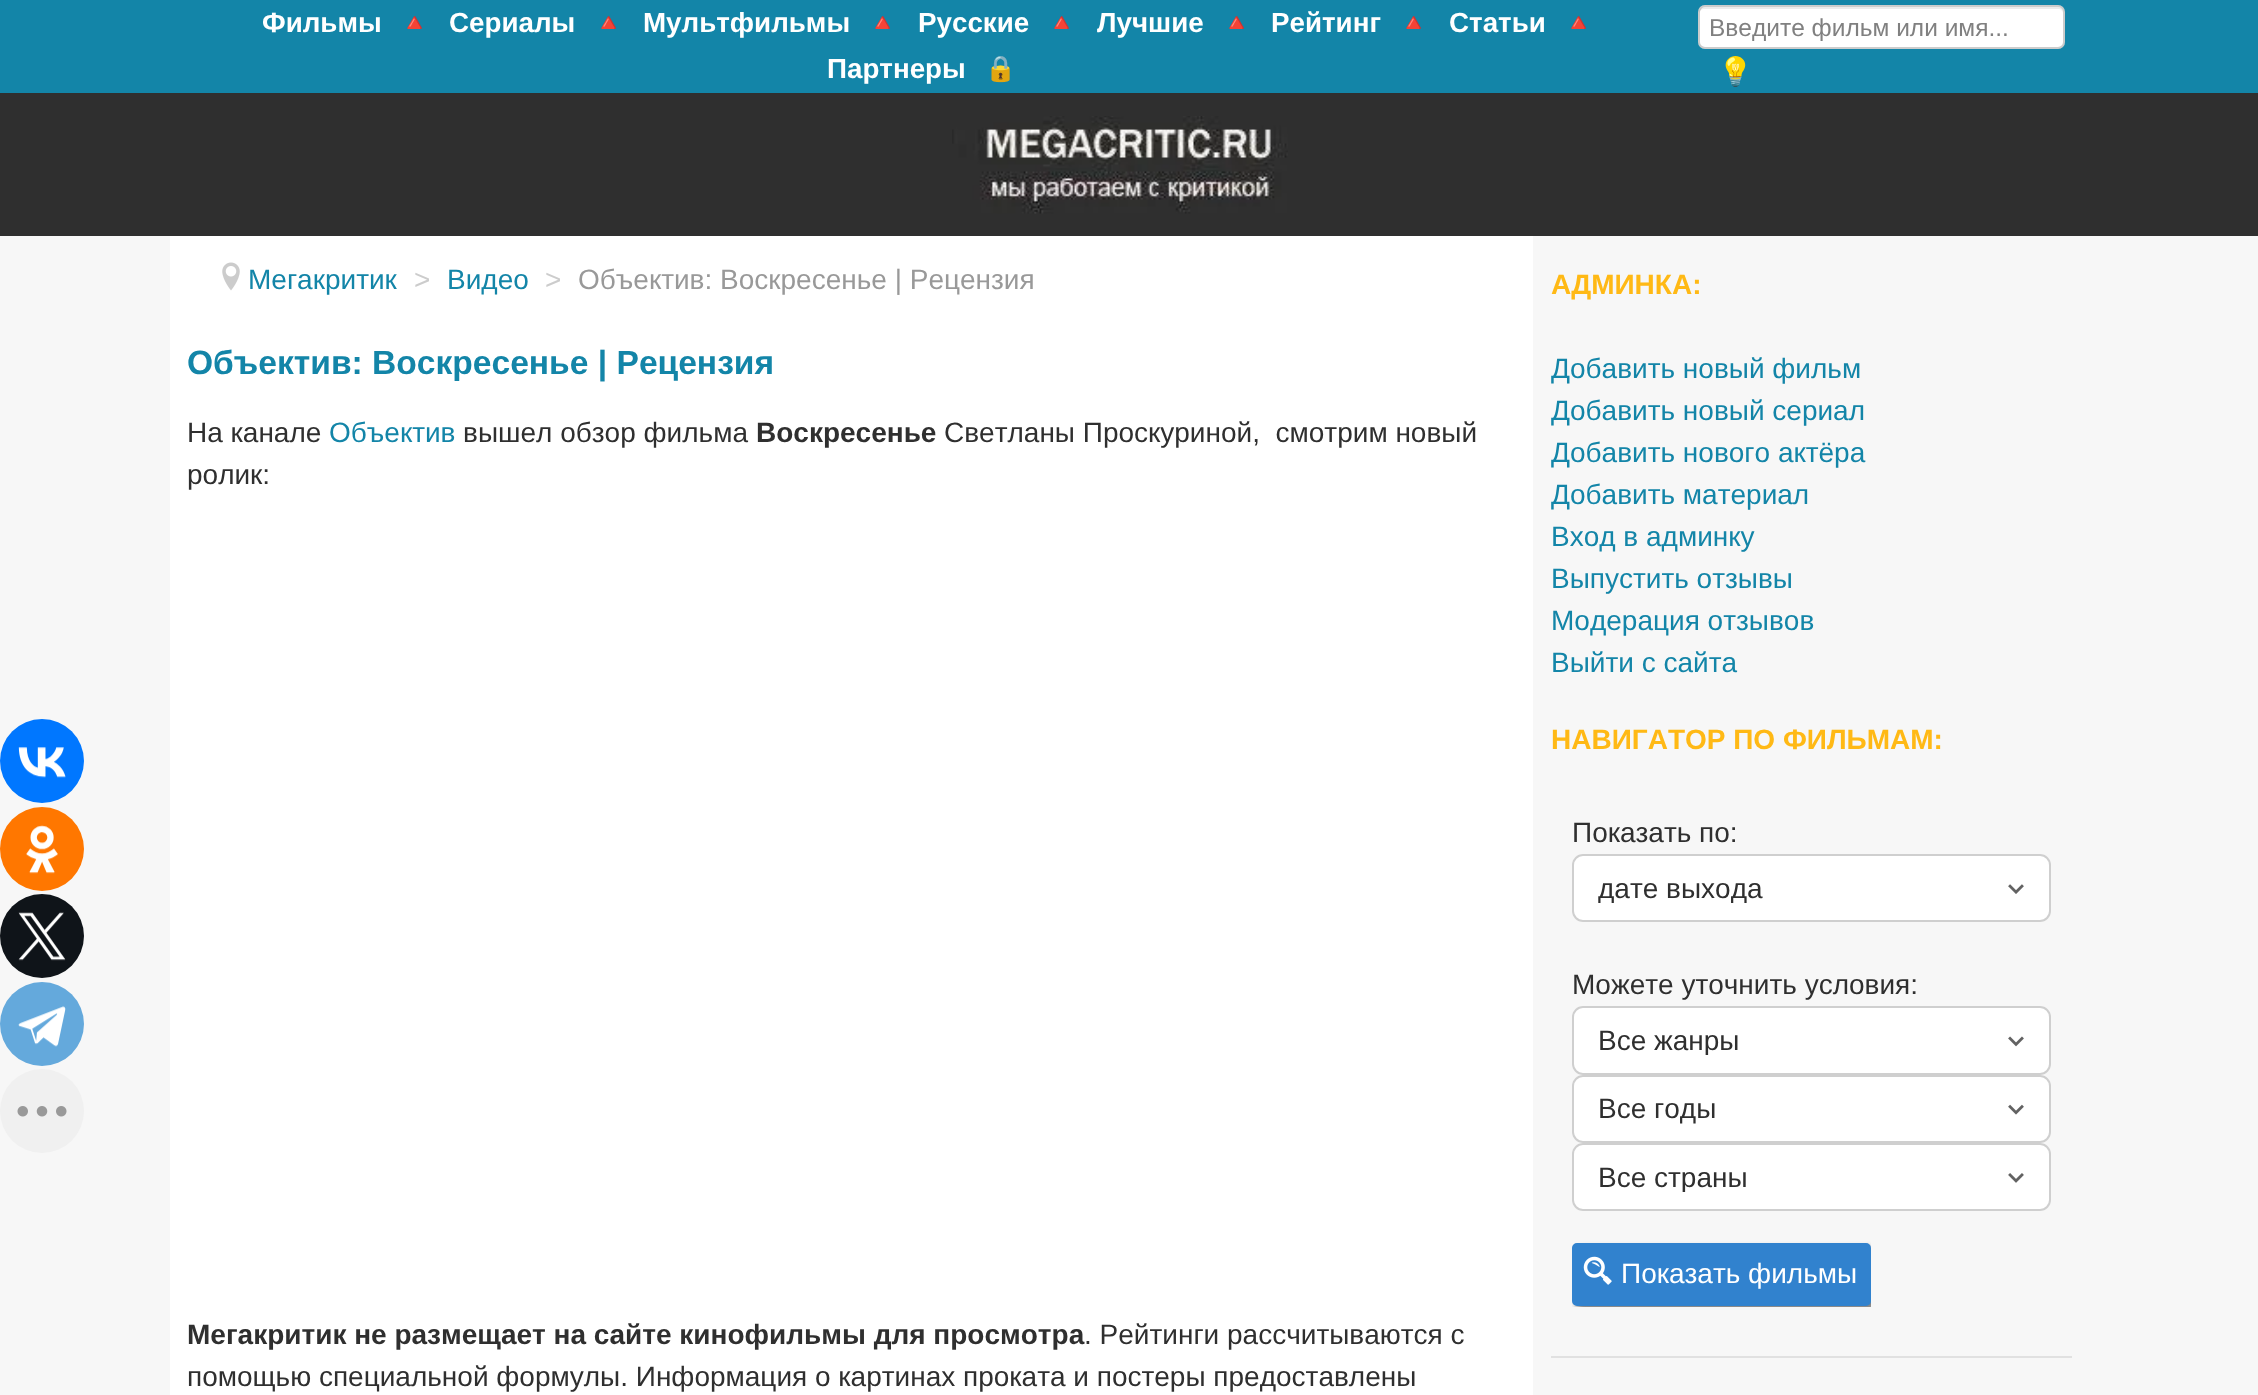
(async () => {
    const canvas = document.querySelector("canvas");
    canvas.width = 2258;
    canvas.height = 1395;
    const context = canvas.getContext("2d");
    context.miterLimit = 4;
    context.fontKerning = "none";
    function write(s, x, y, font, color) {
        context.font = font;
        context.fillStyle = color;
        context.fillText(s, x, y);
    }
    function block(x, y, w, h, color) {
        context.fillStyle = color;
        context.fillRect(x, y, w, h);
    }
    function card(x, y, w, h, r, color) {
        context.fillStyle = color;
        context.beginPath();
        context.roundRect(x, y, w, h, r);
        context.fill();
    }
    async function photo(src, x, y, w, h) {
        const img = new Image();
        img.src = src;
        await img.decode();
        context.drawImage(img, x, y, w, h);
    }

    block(0, 0, 2258, 1395, "rgb(247, 247, 247)");
    block(0, 0, 2258, 93, "rgb(19, 133, 168)");
    write("Фильмы", 262, 32, "bold 27.75px Liberation Sans", "rgb(255, 255, 255)");
    write("🔺", 399, 31, "bold 25px Noto Color Emoji", "rgb(137, 194, 212)");
    write("Сериалы", 449, 32, "bold 27.75px Liberation Sans", "rgb(255, 255, 255)");
    write("🔺", 593, 31, "bold 25px Noto Color Emoji", "rgb(137, 194, 212)");
    write("Мультфильмы", 643, 32, "bold 27.75px Liberation Sans", "rgb(255, 255, 255)");
    write("🔺", 867, 31, "bold 25px Noto Color Emoji", "rgb(137, 194, 212)");
    write("Русские", 918, 32, "bold 27.75px Liberation Sans", "rgb(255, 255, 255)");
    write("🔺", 1046, 31, "bold 25px Noto Color Emoji", "rgb(137, 194, 212)");
    write("Лучшие", 1097, 32, "bold 27.75px Liberation Sans", "rgb(255, 255, 255)");
    write("🔺", 1221, 31, "bold 25px Noto Color Emoji", "rgb(137, 194, 212)");
    write("Рейтинг", 1271, 32, "bold 27.75px Liberation Sans", "rgb(255, 255, 255)");
    write("🔺", 1398, 31, "bold 25px Noto Color Emoji", "rgb(137, 194, 212)");
    write("Статьи", 1449, 32, "bold 27.75px Liberation Sans", "rgb(255, 255, 255)");
    write("🔺", 1563, 31, "bold 25px Noto Color Emoji", "rgb(137, 194, 212)");
    write("Партнеры", 827, 78, "bold 27.75px Liberation Sans", "rgb(255, 255, 255)");
    write("🔒", 985, 77, "25px Noto Color Emoji", "rgb(161, 206, 220)");
    card(1698, 5, 367, 44, 7, "rgb(255, 255, 255)");
    context.fillStyle = "rgb(236, 236, 236)";
    context.beginPath();
    context.moveTo(1704, 9);
    context.lineTo(2058, 9);
    context.bezierCurveTo(2061, 9, 2063, 11, 2063, 14);
    context.bezierCurveTo(2063, 11, 2062, 7, 2058, 7);
    context.lineTo(1704, 7);
    context.bezierCurveTo(1700, 7, 1699, 11, 1699, 14);
    context.bezierCurveTo(1699, 11, 1702, 9, 1704, 9);
    context.closePath();
    context.fill();
    context.beginPath();
    context.roundRect(1699, 6, 365, 42, 6);
    context.strokeStyle = "rgba(0, 0, 0, 0.2)";
    context.lineWidth = 2;
    context.stroke();
    write("Введите фильм или имя...", 1709, 36, "24.5px Liberation Sans", "rgb(128, 128, 128)");
    write("💡", 1718, 81, "28px Noto Color Emoji", "rgb(255, 255, 255)");
    block(0, 93, 2258, 143, "rgb(47, 47, 47)");
    await photo("media/1.png", 952, 116, 336, 98);
    block(170, 236, 1363, 1159, "rgb(255, 255, 255)");
    await photo("media/2.png", 222, 262, 18, 29);
    write("Мегакритик", 248, 289, "28px Liberation Sans", "rgb(19, 133, 168)");
    write(">", 414, 289, "28px Liberation Sans", "rgb(204, 204, 204)");
    write("Видео", 447, 289, "28px Liberation Sans", "rgb(19, 133, 168)");
    write(">", 545, 289, "28px Liberation Sans", "rgb(204, 204, 204)");
    write("Объектив: Воскресенье | Рецензия", 578, 289, "28px Liberation Sans", "rgb(153, 153, 153)");
    write("Объектив: Воскресенье | Рецензия", 187, 374, "bold 33.6px Liberation Sans", "rgb(19, 133, 168)");
    write("На канале", 187, 442, "28px Liberation Sans", "rgb(47, 47, 47)");
    write("Объектив", 329, 442, "28px Liberation Sans", "rgb(19, 133, 168)");
    write("вышел обзор фильма", 463, 442, "28px Liberation Sans", "rgb(47, 47, 47)");
    write("Воскресенье", 756, 442, "bold 28px Liberation Sans", "rgb(47, 47, 47)");
    write("Светланы Проскуриной,  смотрим новый", 944, 442, "28px Liberation Sans", "rgb(47, 47, 47)");
    write("ролик:", 187, 484, "28px Liberation Sans", "rgb(47, 47, 47)");
    write("Мегакритик не размещает на сайте кинофильмы для просмотра", 187, 1344, "bold 28px Liberation Sans", "rgb(47, 47, 47)");
    write(". Рейтинги рассчитываются с", 1084, 1344, "28px Liberation Sans", "rgb(47, 47, 47)");
    write("помощью специальной формулы. Информация о картинах проката и постеры предоставлены", 187, 1386, "28px Liberation Sans", "rgb(47, 47, 47)");
    write("АДМИНКА:", 1551, 294, "bold 28px Liberation Sans", "rgb(255, 185, 21)");
    write("Добавить новый фильм", 1551, 378, "28px Liberation Sans", "rgb(19, 133, 168)");
    write("Добавить новый сериал", 1551, 420, "28px Liberation Sans", "rgb(19, 133, 168)");
    write("Добавить нового актёра", 1551, 462, "28px Liberation Sans", "rgb(19, 133, 168)");
    write("Добавить материал", 1551, 504, "28px Liberation Sans", "rgb(19, 133, 168)");
    write("Вход в админку", 1551, 546, "28px Liberation Sans", "rgb(19, 133, 168)");
    write("Выпустить отзывы", 1551, 588, "28px Liberation Sans", "rgb(19, 133, 168)");
    write("Модерация отзывов", 1551, 630, "28px Liberation Sans", "rgb(19, 133, 168)");
    write("Выйти с сайта", 1551, 672, "28px Liberation Sans", "rgb(19, 133, 168)");
    context.fillStyle = "rgb(0, 119, 255)";
    context.beginPath();
    context.arc(42, 761, 42, 0, Math.PI * 2);
    context.fill();
    await photo("media/3.png", 18, 747, 48, 31);
    context.fillStyle = "rgb(255, 119, 0)";
    context.beginPath();
    context.arc(42, 849, 42, 0, Math.PI * 2);
    context.fill();
    await photo("media/4.png", 26, 825, 32, 49);
    context.fillStyle = "rgb(15, 20, 25)";
    context.beginPath();
    context.arc(42, 936, 42, 0, Math.PI * 2);
    context.fill();
    await photo("media/5.png", 18, 912, 48, 49);
    context.fillStyle = "rgb(100, 169, 220)";
    context.beginPath();
    context.arc(42, 1024, 42, 0, Math.PI * 2);
    context.fill();
    await photo("media/6.png", 18, 1006, 48, 41);
    context.fillStyle = "rgb(240, 240, 240)";
    context.beginPath();
    context.arc(42, 1111, 42, 0, Math.PI * 2);
    context.fill();
    await photo("media/7.png", 17, 1106, 50, 11);
    write("НАВИГАТОР ПО ФИЛЬМАМ:", 1551, 749, "bold 28px Liberation Sans", "rgb(255, 185, 21)");
    block(1551, 1356, 521, 2, "rgb(225, 225, 225)");
    write("Показать по:", 1572, 842, "28px Liberation Sans", "rgb(47, 47, 47)");
    card(1572, 854, 479, 68, 11, "rgb(255, 255, 255)");
    await photo("media/8.png", 2008, 884, 16, 10);
    context.beginPath();
    context.roundRect(1573, 855, 477, 66, 10);
    context.strokeStyle = "rgb(207, 207, 207)";
    context.stroke();
    context.save();
    context.beginPath();
    context.rect(1598, 873, 381, 30);
    context.clip();
    write("дате выхода", 1598, 898, "28px Liberation Sans", "rgb(47, 47, 47)");
    context.restore();
    write("Можете уточнить условия:", 1572, 994, "28px Liberation Sans", "rgb(47, 47, 47)");
    card(1572, 1006, 479, 69, 11, "rgb(255, 255, 255)");
    await photo("media/9.png", 2008, 1036, 16, 11);
    context.beginPath();
    context.roundRect(1573, 1007, 477, 67, 10);
    context.stroke();
    context.save();
    context.beginPath();
    context.rect(1598, 1026, 381, 29);
    context.clip();
    write("Все жанры", 1598, 1050, "28px Liberation Sans", "rgb(47, 47, 47)");
    context.restore();
    card(1572, 1075, 479, 68, 11, "rgb(255, 255, 255)");
    await photo("media/10.png", 2008, 1104, 16, 11);
    context.beginPath();
    context.roundRect(1573, 1076, 477, 66, 10);
    context.stroke();
    write("Все годы", 1598, 1118, "28px Liberation Sans", "rgb(47, 47, 47)");
    card(1572, 1143, 479, 68, 11, "rgb(255, 255, 255)");
    await photo("media/11.png", 2008, 1173, 16, 10);
    context.beginPath();
    context.roundRect(1573, 1144, 477, 66, 10);
    context.stroke();
    context.save();
    context.beginPath();
    context.rect(1598, 1162, 381, 30);
    context.clip();
    write("Все страны", 1598, 1187, "28px Liberation Sans", "rgb(47, 47, 47)");
    context.restore();
    context.save();
    context.beginPath();
    context.rect(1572, 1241, 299, 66);
    context.clip();
    context.fillStyle = "rgb(128, 128, 128)";
    context.filter = "blur(3px)";
    context.beginPath();
    context.roundRect(1577, 1248, 299, 63, 5);
    context.fill();
    context.filter = "none";
    context.restore();
    context.fillStyle = "rgb(49, 130, 206)";
    context.beginPath();
    context.roundRect(1573, 1244, 297, 61, 4);
    context.fill();
    context.strokeStyle = "rgb(49, 130, 206)";
    context.stroke();
    await photo("media/12.png", 1583, 1256, 29, 29);
    write("Показать фильмы", 1621, 1283, "28px Liberation Sans", "rgb(255, 255, 255)");
})();
